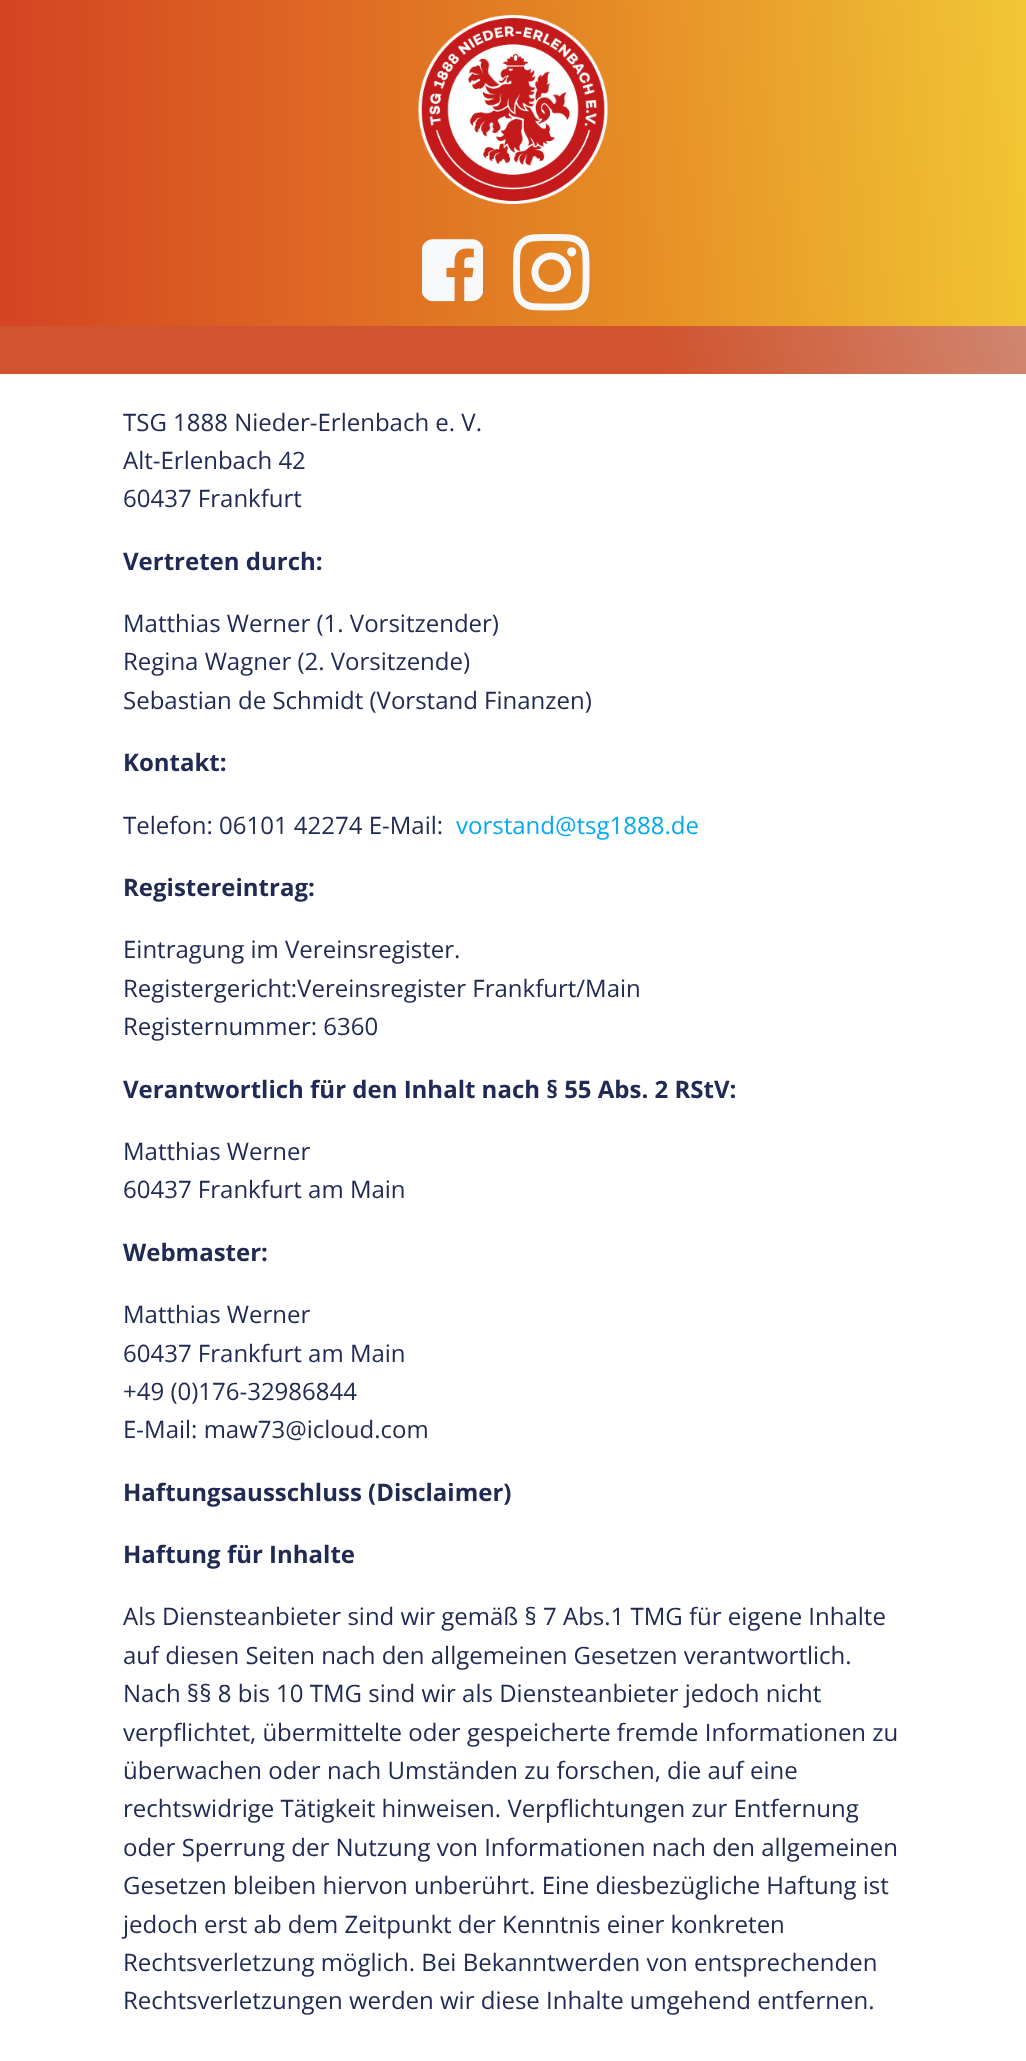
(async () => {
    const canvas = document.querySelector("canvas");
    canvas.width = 1026;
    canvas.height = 2061;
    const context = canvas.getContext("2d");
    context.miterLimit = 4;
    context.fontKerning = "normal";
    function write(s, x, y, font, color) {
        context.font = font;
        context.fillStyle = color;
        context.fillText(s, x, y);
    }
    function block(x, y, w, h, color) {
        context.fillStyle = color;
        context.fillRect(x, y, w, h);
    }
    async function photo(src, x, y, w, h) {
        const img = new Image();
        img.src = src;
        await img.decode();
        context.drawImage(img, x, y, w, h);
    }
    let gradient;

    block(0, 0, 1026, 2061, "rgb(255, 255, 255)");
    gradient = context.createLinearGradient(-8, 346, 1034, 27);
    gradient.addColorStop(0.58, "rgb(208, 84, 45)");
    gradient.addColorStop(1, "rgb(208, 147, 130)");
    context.fillStyle = gradient;
    context.fillRect(0, 0, 1026, 374);
    gradient = context.createLinearGradient(0, 163, 1026, 163);
    gradient.addColorStop(0, "rgba(214, 63, 32, 0.8)");
    gradient.addColorStop(1, "rgba(249, 212, 35, 0.8)");
    context.fillStyle = gradient;
    context.fillRect(0, 0, 1026, 326);
    await photo("media/1.png", 418, 15, 190, 189);
    await photo("media/2.png", 422, 239, 61, 63);
    await photo("media/3.png", 513, 234, 77, 77);
    write("TSG 1888 Nieder-Erlenbach e. V.", 123, 431, "24px Open Sans", "rgb(32, 42, 84)");
    write("Alt-Erlenbach 42", 123, 469, "24px Open Sans", "rgb(32, 42, 84)");
    write("60437 Frankfurt", 123, 507, "24px Open Sans", "rgb(32, 42, 84)");
    write("Vertreten durch:", 123, 570, "bold 24px Open Sans", "rgb(32, 42, 84)");
    write("Matthias Werner (1. Vorsitzender)", 123, 632, "24px Open Sans", "rgb(32, 42, 84)");
    write("Regina Wagner (2. Vorsitzende)", 123, 670, "24px Open Sans", "rgb(32, 42, 84)");
    write("Sebastian de Schmidt (Vorstand Finanzen)", 123, 709, "24px Open Sans", "rgb(32, 42, 84)");
    write("Kontakt:", 123, 771, "bold 24px Open Sans", "rgb(32, 42, 84)");
    write("Telefon: 06101 42274 E-Mail:", 123, 834, "24px Open Sans", "rgb(32, 42, 84)");
    write("vorstand@tsg1888.de", 456, 834, "24px Open Sans", "rgb(3, 169, 244)");
    write("Registereintrag:", 123, 896, "bold 24px Open Sans", "rgb(32, 42, 84)");
    write("Eintragung im Vereinsregister.", 123, 958, "24px Open Sans", "rgb(32, 42, 84)");
    write("Registergericht:Vereinsregister Frankfurt/Main", 123, 997, "24px Open Sans", "rgb(32, 42, 84)");
    write("Registernummer: 6360", 123, 1035, "24px Open Sans", "rgb(32, 42, 84)");
    write("Verantwortlich für den Inhalt nach § 55 Abs. 2 RStV:", 123, 1098, "bold 24px Open Sans", "rgb(32, 42, 84)");
    write("Matthias Werner", 123, 1160, "24px Open Sans", "rgb(32, 42, 84)");
    write("60437 Frankfurt am Main", 123, 1198, "24px Open Sans", "rgb(32, 42, 84)");
    write("Webmaster:", 123, 1261, "bold 24px Open Sans", "rgb(32, 42, 84)");
    write("Matthias Werner", 123, 1323, "24px Open Sans", "rgb(32, 42, 84)");
    write("60437 Frankfurt am Main", 123, 1362, "24px Open Sans", "rgb(32, 42, 84)");
    write("+49 (0)176-32986844", 123, 1400, "24px Open Sans", "rgb(32, 42, 84)");
    write("E-Mail: maw73@icloud.com", 123, 1438, "24px Open Sans", "rgb(32, 42, 84)");
    write("Haftungsausschluss (Disclaimer)", 123, 1501, "bold 24px Open Sans", "rgb(32, 42, 84)");
    write("Haftung für Inhalte", 123, 1563, "bold 24px Open Sans", "rgb(32, 42, 84)");
    write("Als Diensteanbieter sind wir gemäß § 7 Abs.1 TMG für eigene Inhalte", 123, 1625, "24px Open Sans", "rgb(32, 42, 84)");
    write("auf diesen Seiten nach den allgemeinen Gesetzen verantwortlich.", 123, 1664, "24px Open Sans", "rgb(32, 42, 84)");
    write("Nach §§ 8 bis 10 TMG sind wir als Diensteanbieter jedoch nicht", 123, 1702, "24px Open Sans", "rgb(32, 42, 84)");
    write("verpflichtet, übermittelte oder gespeicherte fremde Informationen zu", 123, 1741, "24px Open Sans", "rgb(32, 42, 84)");
    write("überwachen oder nach Umständen zu forschen, die auf eine", 123, 1779, "24px Open Sans", "rgb(32, 42, 84)");
    write("rechtswidrige Tätigkeit hinweisen. Verpflichtungen zur Entfernung", 123, 1817, "24px Open Sans", "rgb(32, 42, 84)");
    write("oder Sperrung der Nutzung von Informationen nach den allgemeinen", 123, 1856, "24px Open Sans", "rgb(32, 42, 84)");
    write("Gesetzen bleiben hiervon unberührt. Eine diesbezügliche Haftung ist", 123, 1894, "24px Open Sans", "rgb(32, 42, 84)");
    write("jedoch erst ab dem Zeitpunkt der Kenntnis einer konkreten", 123, 1933, "24px Open Sans", "rgb(32, 42, 84)");
    write("Rechtsverletzung möglich. Bei Bekanntwerden von entsprechenden", 123, 1971, "24px Open Sans", "rgb(32, 42, 84)");
    write("Rechtsverletzungen werden wir diese Inhalte umgehend entfernen.", 123, 2009, "24px Open Sans", "rgb(32, 42, 84)");
})();
